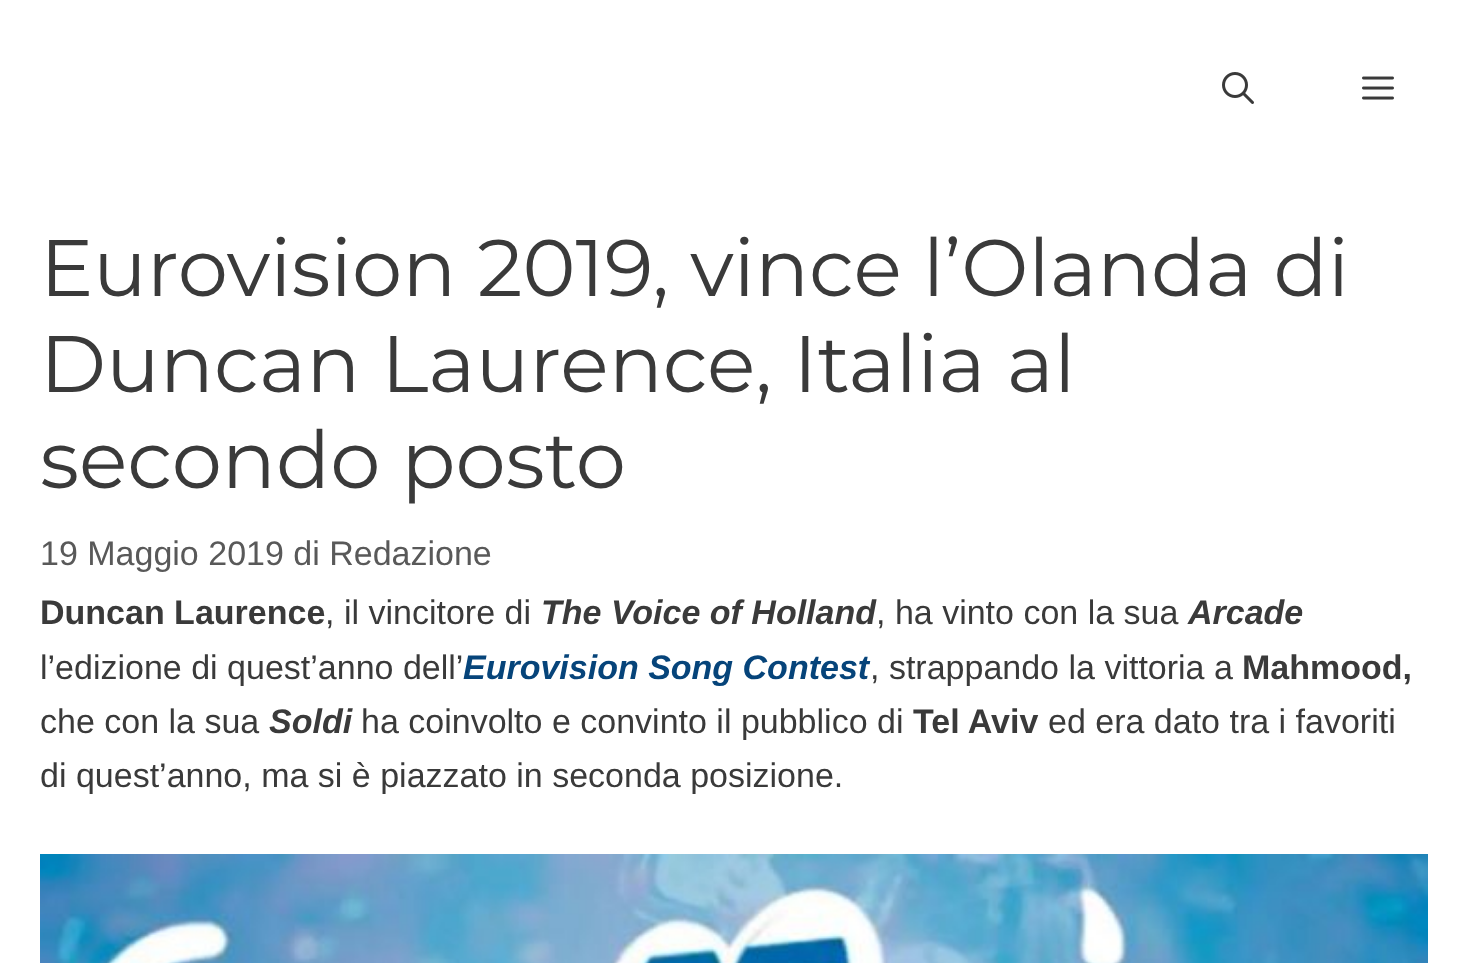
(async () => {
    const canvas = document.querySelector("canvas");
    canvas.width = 1468;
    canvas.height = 963;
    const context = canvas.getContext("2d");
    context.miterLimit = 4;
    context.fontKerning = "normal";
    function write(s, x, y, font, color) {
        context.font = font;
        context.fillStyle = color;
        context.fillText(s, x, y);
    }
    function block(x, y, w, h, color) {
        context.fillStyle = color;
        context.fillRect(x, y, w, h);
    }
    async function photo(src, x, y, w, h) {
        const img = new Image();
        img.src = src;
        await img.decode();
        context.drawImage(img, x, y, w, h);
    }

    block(0, 0, 1468, 963, "rgb(255, 255, 255)");
    await photo("media/1.png", 1222, 72, 32, 32);
    await photo("media/2.png", 1362, 76, 32, 24);
    write("Eurovision 2019, vince l’Olanda di", 40, 296, "80px Montserrat", "rgb(58, 58, 58)");
    write("Duncan Laurence, Italia al", 40, 392, "80px Montserrat", "rgb(58, 58, 58)");
    write("secondo posto", 40, 488, "80px Montserrat", "rgb(58, 58, 58)");
    write("19 Maggio 2019 di Redazione", 40, 565, "34px Liberation Sans", "rgb(89, 89, 89)");
    write("Duncan Laurence", 40, 624, "bold 34px Liberation Sans", "rgb(58, 58, 58)");
    write(", il vincitore di", 325, 624, "34px Liberation Sans", "rgb(58, 58, 58)");
    write("The Voice of Holland", 541, 624, "italic bold 34px Liberation Sans", "rgb(58, 58, 58)");
    write(", ha vinto con la sua", 876, 624, "34px Liberation Sans", "rgb(58, 58, 58)");
    write("Arcade", 1188, 624, "italic bold 34px Liberation Sans", "rgb(58, 58, 58)");
    write("l’edizione di quest’anno dell’", 40, 679, "34px Liberation Sans", "rgb(58, 58, 58)");
    write("Eurovision Song Contest", 463, 679, "italic bold 34px Liberation Sans", "rgb(6, 68, 122)");
    write(", strappando la vittoria a", 870, 679, "34px Liberation Sans", "rgb(58, 58, 58)");
    write("Mahmood,", 1242, 679, "bold 34px Liberation Sans", "rgb(58, 58, 58)");
    write("che con la sua", 40, 733, "34px Liberation Sans", "rgb(58, 58, 58)");
    write("Soldi", 269, 733, "italic bold 34px Liberation Sans", "rgb(58, 58, 58)");
    write("ha coinvolto e convinto il pubblico di", 361, 733, "34px Liberation Sans", "rgb(58, 58, 58)");
    write("Tel Aviv", 913, 733, "bold 34px Liberation Sans", "rgb(58, 58, 58)");
    write("ed era dato tra i favoriti", 1048, 733, "34px Liberation Sans", "rgb(58, 58, 58)");
    write("di quest’anno, ma si è piazzato in seconda posizione.", 40, 787, "34px Liberation Sans", "rgb(58, 58, 58)");
    await photo("media/3.png", 40, 854, 1388, 109);
})();
